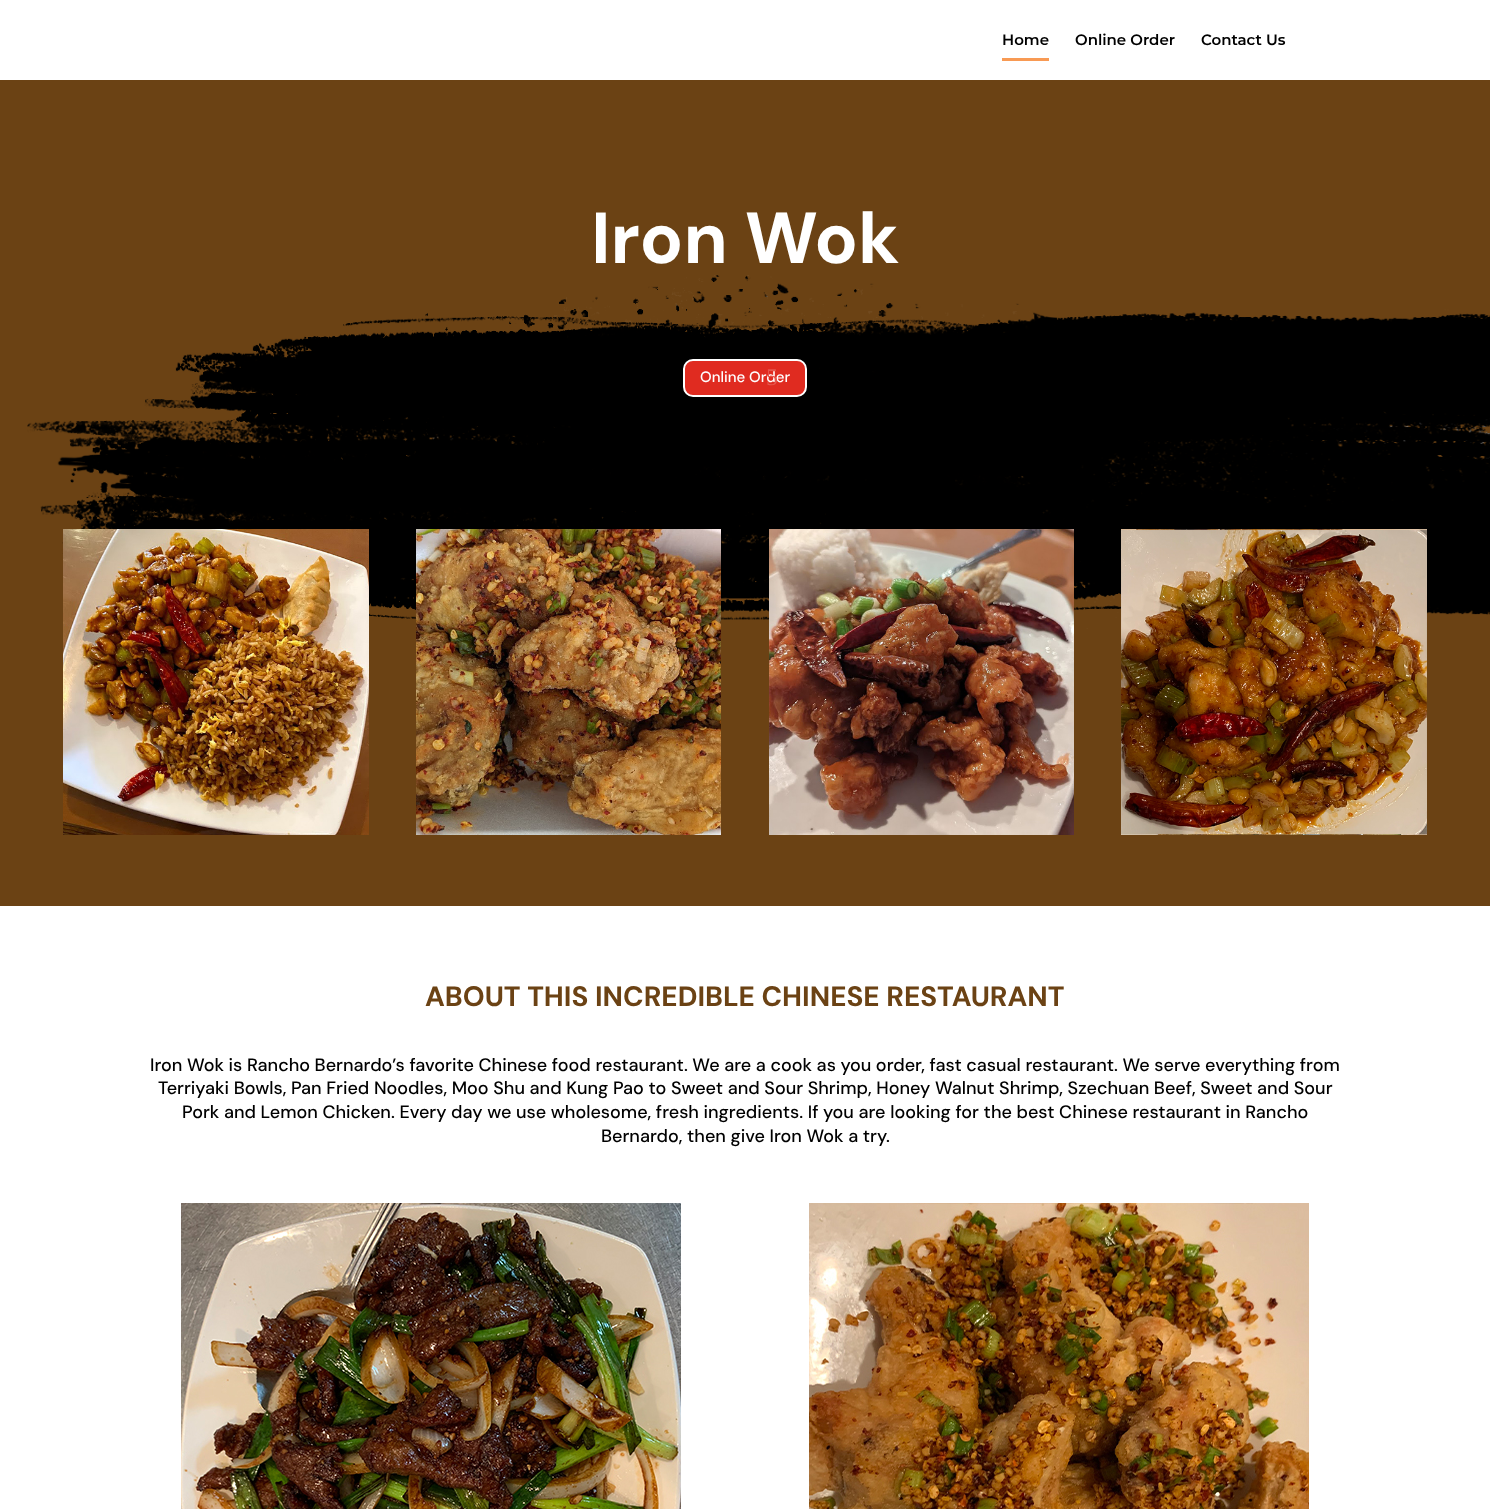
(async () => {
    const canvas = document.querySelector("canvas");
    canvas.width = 1490;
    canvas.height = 1509;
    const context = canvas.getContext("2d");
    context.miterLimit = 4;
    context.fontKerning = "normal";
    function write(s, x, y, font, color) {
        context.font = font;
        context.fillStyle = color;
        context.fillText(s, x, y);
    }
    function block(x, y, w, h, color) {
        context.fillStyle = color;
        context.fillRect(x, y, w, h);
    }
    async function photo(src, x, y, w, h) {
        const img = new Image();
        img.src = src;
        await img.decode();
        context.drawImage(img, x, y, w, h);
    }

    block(0, 0, 1490, 1509, "rgb(255, 255, 255)");
    write("Home", 1002, 45, "100 15px Montserrat", "rgb(0, 0, 0)");
    block(1002, 58, 47, 3, "rgb(248, 154, 84)");
    write("Online Order", 1075, 45, "100 15px Montserrat", "rgb(0, 0, 0)");
    write("Contact Us", 1201, 45, "100 15px Montserrat", "rgb(0, 0, 0)");
    block(0, 80, 1490, 826, "rgb(107, 66, 20)");
    await photo("media/1.png", 27, 275, 1463, 354);
    write("Iron Wok", 591, 263, "bold 72px DM Sans", "rgb(255, 255, 255)");
    context.fillStyle = "rgb(224, 43, 32)";
    context.beginPath();
    context.roundRect(684, 360, 122, 36, 9);
    context.fill();
    context.strokeStyle = "rgb(255, 255, 255)";
    context.lineWidth = 2;
    context.stroke();
    write("Online Order", 700, 382, "500 15px DM Sans", "rgb(255, 255, 255)");
    write("5", 766, 385, "24px Liberation Serif", "rgb(230, 86, 77)");
    await photo("media/2.png", 63, 529, 306, 306);
    await photo("media/3.png", 416, 529, 305, 306);
    await photo("media/4.png", 769, 529, 305, 306);
    await photo("media/5.png", 1121, 529, 306, 306);
    write("ABOUT THIS INCREDIBLE CHINESE RESTAURANT", 425, 1006, "bold 28px DM Sans", "rgb(107, 66, 20)");
    write("Iron Wok is Rancho Bernardo’s favorite Chinese food restaurant. We are a cook as you order, fast casual restaurant. We serve everything from", 150, 1071, "500 18px DM Sans", "rgb(0, 0, 0)");
    write("Terriyaki Bowls, Pan Fried Noodles, Moo Shu and Kung Pao to Sweet and Sour Shrimp, Honey Walnut Shrimp, Szechuan Beef, Sweet and Sour", 158, 1094, "500 18px DM Sans", "rgb(0, 0, 0)");
    write("Pork and Lemon Chicken. Every day we use wholesome, fresh ingredients. If you are looking for the best Chinese restaurant in Rancho", 182, 1118, "500 18px DM Sans", "rgb(0, 0, 0)");
    write("Bernardo, then give Iron Wok a try.", 601, 1142, "500 18px DM Sans", "rgb(0, 0, 0)");
    await photo("media/6.png", 181, 1203, 500, 306);
    await photo("media/7.png", 809, 1203, 500, 306);
})();
